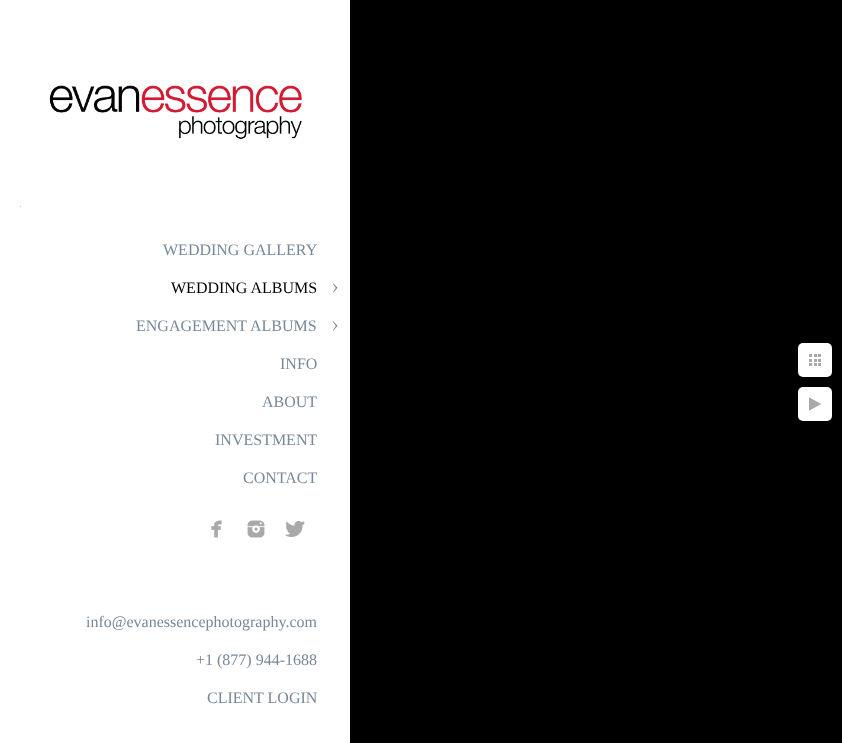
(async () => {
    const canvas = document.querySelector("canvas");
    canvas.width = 842;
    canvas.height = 743;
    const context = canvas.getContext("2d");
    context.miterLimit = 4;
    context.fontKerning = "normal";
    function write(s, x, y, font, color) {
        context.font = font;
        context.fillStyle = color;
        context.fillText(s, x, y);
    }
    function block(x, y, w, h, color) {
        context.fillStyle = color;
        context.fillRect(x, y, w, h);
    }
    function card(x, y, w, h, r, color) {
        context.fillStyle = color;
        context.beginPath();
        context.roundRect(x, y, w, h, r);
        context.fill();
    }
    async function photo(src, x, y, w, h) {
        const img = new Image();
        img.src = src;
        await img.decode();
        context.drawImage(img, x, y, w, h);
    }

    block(0, 0, 842, 743, "rgb(0, 0, 0)");
    block(0, 0, 350, 743, "rgb(255, 255, 255)");
    await photo("media/1.png", 20, 85, 282, 122);
    write("WEDDING GALLERY", 163, 255, "16px Liberation Serif", "rgb(119, 136, 153)");
    write("WEDDING ALBUMS", 171, 293, "16px Liberation Serif", "rgb(0, 0, 0)");
    await photo("media/2.png", 332, 283, 6, 10);
    write("ENGAGEMENT ALBUMS", 136, 331, "16px Liberation Serif", "rgb(119, 136, 153)");
    await photo("media/2.png", 332, 321, 6, 10);
    write("INFO", 280, 369, "16px Liberation Serif", "rgb(119, 136, 153)");
    write("ABOUT", 262, 407, "16px Liberation Serif", "rgb(119, 136, 153)");
    write("INVESTMENT", 215, 445, "16px Liberation Serif", "rgb(119, 136, 153)");
    write("CONTACT", 243, 483, "16px Liberation Serif", "rgb(119, 136, 153)");
    await photo("media/3.png", 211, 520, 11, 18);
    await photo("media/4.png", 247, 520, 18, 18);
    await photo("media/5.png", 285, 521, 20, 16);
    write("info@evanessencephotography.com", 86, 627, "16px Liberation Serif", "rgb(119, 136, 153)");
    write("+1 (877) 944-1688", 196, 665, "16px Liberation Serif", "rgb(119, 136, 153)");
    write("CLIENT LOGIN", 207, 703, "16px Liberation Serif", "rgb(119, 136, 153)");
    card(798, 343, 34, 34, 5, "rgb(255, 255, 255)");
    await photo("media/6.png", 809, 354, 12, 12);
    card(798, 387, 34, 34, 5, "rgb(255, 255, 255)");
    await photo("media/7.png", 809, 397, 12, 14);
})();
